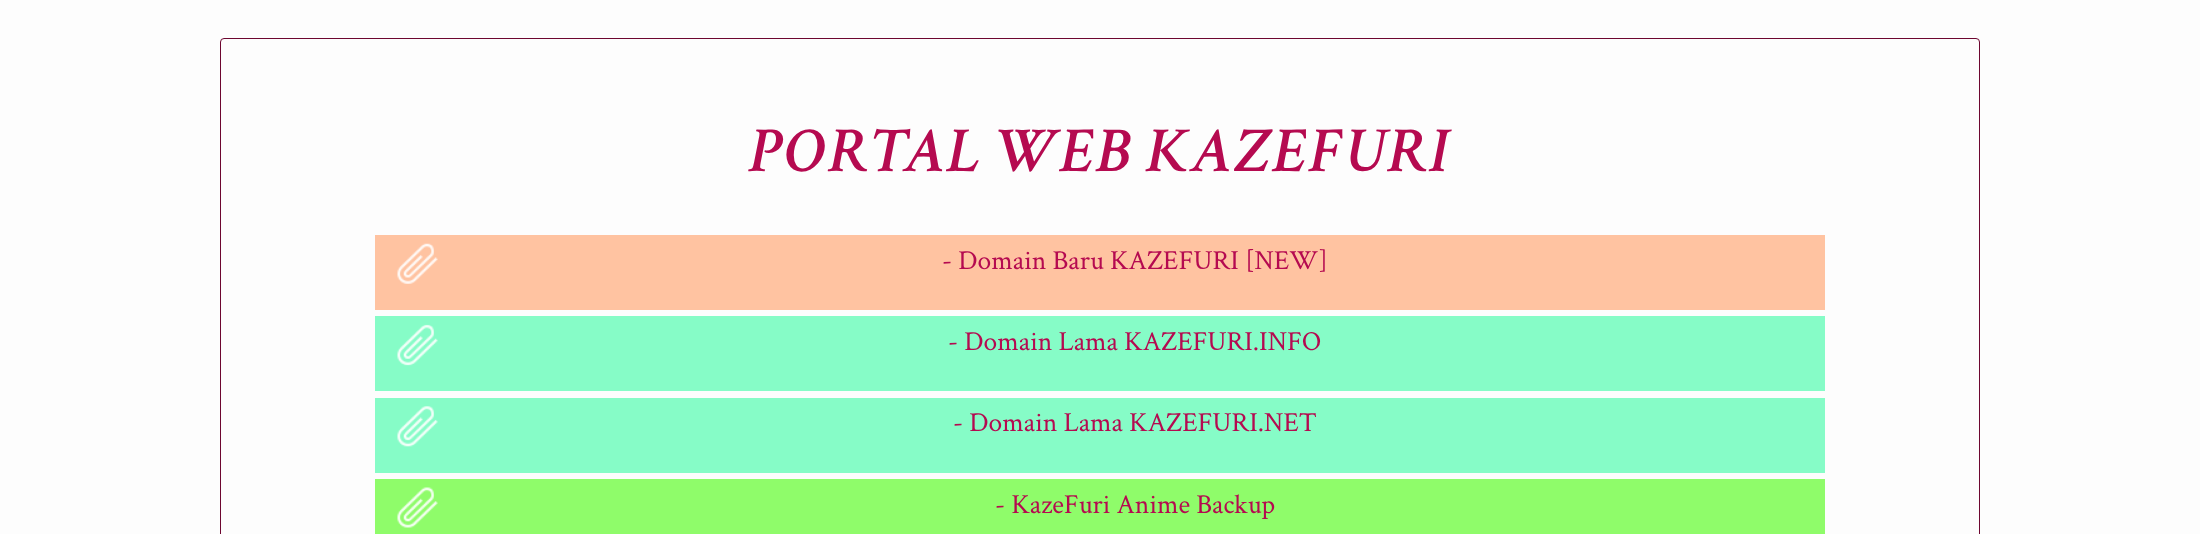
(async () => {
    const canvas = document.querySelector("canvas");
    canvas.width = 2200;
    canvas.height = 534;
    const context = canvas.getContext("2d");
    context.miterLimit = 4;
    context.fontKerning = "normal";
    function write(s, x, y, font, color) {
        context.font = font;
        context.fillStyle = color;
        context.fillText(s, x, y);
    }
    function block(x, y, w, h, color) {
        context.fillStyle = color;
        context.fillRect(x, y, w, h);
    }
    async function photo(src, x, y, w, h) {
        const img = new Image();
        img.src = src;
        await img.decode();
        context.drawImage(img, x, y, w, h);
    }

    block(0, 0, 2200, 534, "rgb(253, 253, 253)");
    context.beginPath();
    context.roundRect(220.5, 38.5, 1759, 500, 3.5);
    context.strokeStyle = "rgb(109, 6, 48)";
    context.stroke();
    context.letterSpacing = "2.5px";
    write("PORTAL WEB KAZEFURI", 749, 171, "italic 600 64.3px Crimson Text", "rgb(181, 10, 80)");
    block(375, 235, 1450, 75, "rgb(255, 195, 161)");
    await photo("media/1.png", 397, 243, 41, 41);
    context.letterSpacing = "0px";
    write("- Domain Baru KAZEFURI [NEW]", 942, 269, "27.5px Crimson Text", "rgb(181, 10, 80)");
    block(375, 316, 1450, 75, "rgb(134, 252, 199)");
    await photo("media/2.png", 397, 324, 41, 42);
    write("- Domain Lama KAZEFURI.INFO", 948, 350, "27.5px Crimson Text", "rgb(181, 10, 80)");
    block(375, 398, 1450, 75, "rgb(134, 252, 199)");
    await photo("media/3.png", 397, 406, 41, 41);
    write("- Domain Lama KAZEFURI.NET", 953, 431, "27.5px Crimson Text", "rgb(181, 10, 80)");
    block(375, 479, 1450, 55, "rgb(143, 252, 106)");
    await photo("media/4.png", 397, 487, 41, 41);
    write("- KazeFuri Anime Backup", 995, 513, "27.5px Crimson Text", "rgb(181, 10, 80)");
})();
